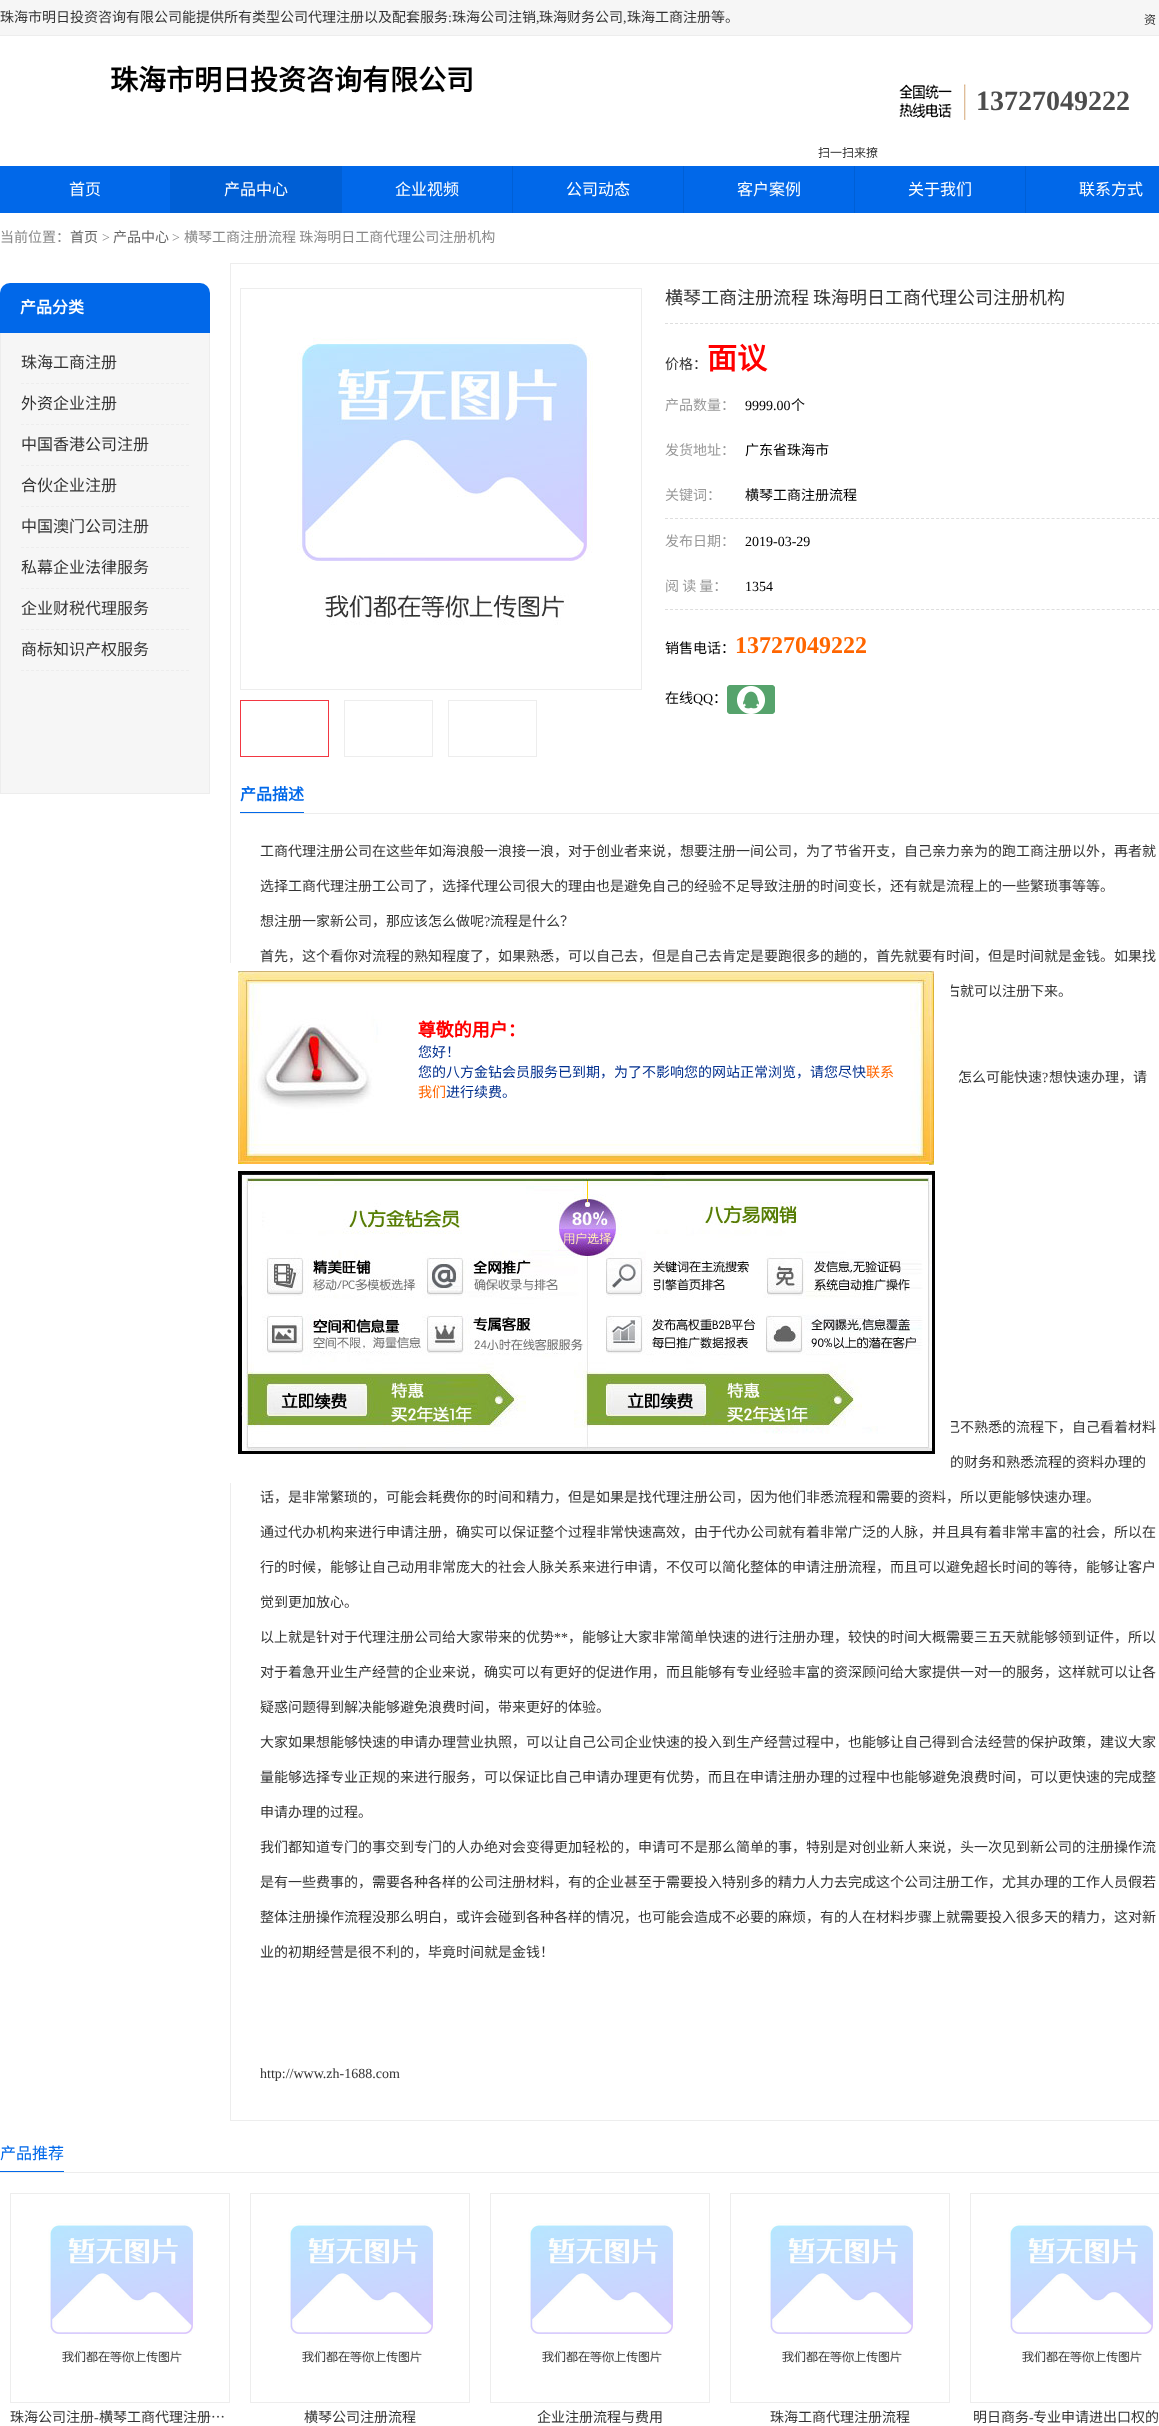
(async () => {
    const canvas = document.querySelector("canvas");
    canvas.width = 1159;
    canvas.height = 2426;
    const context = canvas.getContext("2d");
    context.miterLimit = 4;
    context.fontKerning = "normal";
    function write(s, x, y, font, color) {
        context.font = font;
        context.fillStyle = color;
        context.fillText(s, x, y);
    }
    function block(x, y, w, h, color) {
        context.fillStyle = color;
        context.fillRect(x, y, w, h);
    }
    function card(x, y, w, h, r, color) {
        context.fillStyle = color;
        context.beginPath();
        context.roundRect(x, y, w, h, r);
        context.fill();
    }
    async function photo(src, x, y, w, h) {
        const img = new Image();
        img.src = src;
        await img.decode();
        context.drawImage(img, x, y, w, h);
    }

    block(0, 0, 1159, 2426, "rgb(255, 255, 255)");
    block(0, 0, 1159, 35, "rgb(246, 246, 246)");
    block(0, 35, 1159, 1, "rgb(237, 237, 237)");
    write("珠海市明日投资咨询有限公司能提供所有类型公司代理注册以及配套服务", 0, 22, "14px Noto Sans CJK SC", "rgb(51, 51, 51)");
    write(":", 448, 22, "14px Liberation Serif", "rgb(51, 51, 51)");
    write("珠海公司注销", 452, 22, "14px Noto Sans CJK SC", "rgb(51, 51, 51)");
    write(",", 536, 22, "14px Liberation Serif", "rgb(51, 51, 51)");
    write("珠海财务公司", 539, 22, "14px Noto Sans CJK SC", "rgb(51, 51, 51)");
    write(",", 623, 22, "14px Liberation Serif", "rgb(51, 51, 51)");
    write("珠海工商注册等。", 627, 22, "14px Noto Sans CJK SC", "rgb(51, 51, 51)");
    write("资", 1144, 24, "12px Noto Sans CJK SC", "rgb(51, 51, 51)");
    write("珠海市明日投资咨询有限公司", 110, 90, "bold 28px Noto Sans CJK SC", "rgb(0, 0, 0)");
    await photo("media/1.png", 899, 84, 67, 36);
    write("13727049222", 976, 110, "bold 28px Liberation Serif", "rgb(77, 77, 77)");
    write("扫一扫来撩", 818, 157, "12px Noto Sans CJK SC", "rgb(51, 51, 51)");
    block(0, 166, 1159, 47, "rgb(1, 104, 233)");
    block(170, 166, 172, 47, "rgb(0, 95, 213)");
    write("首页", 69, 195, "16px Noto Sans CJK SC", "rgb(255, 255, 255)");
    write("产品中心", 224, 195, "16px Noto Sans CJK SC", "rgb(255, 255, 255)");
    block(512, 166, 1, 47, "rgb(0, 95, 213)");
    write("企业视频", 395, 195, "16px Noto Sans CJK SC", "rgb(255, 255, 255)");
    block(683, 166, 1, 47, "rgb(0, 95, 213)");
    write("公司动态", 566, 195, "16px Noto Sans CJK SC", "rgb(255, 255, 255)");
    block(854, 166, 1, 47, "rgb(0, 95, 213)");
    write("客户案例", 737, 195, "16px Noto Sans CJK SC", "rgb(255, 255, 255)");
    block(1025, 166, 1, 47, "rgb(0, 95, 213)");
    write("关于我们", 908, 195, "16px Noto Sans CJK SC", "rgb(255, 255, 255)");
    write("联系方式", 1079, 195, "16px Noto Sans CJK SC", "rgb(255, 255, 255)");
    write("当前位置：", 0, 242, "14px Noto Sans CJK SC", "rgb(136, 136, 136)");
    write("首页", 70, 242, "14px Noto Sans CJK SC", "rgb(102, 102, 102)");
    write(">", 102, 242, "14px Liberation Serif", "rgb(136, 136, 136)");
    write("产品中心", 113, 242, "14px Noto Sans CJK SC", "rgb(102, 102, 102)");
    write(">", 172, 242, "14px Liberation Serif", "rgb(136, 136, 136)");
    write("横琴工商注册流程 珠海明日工商代理公司注册机构", 184, 242, "14px Noto Sans CJK SC", "rgb(136, 136, 136)");
    context.fillStyle = "rgb(1, 104, 233)";
    context.beginPath();
    context.roundRect(0, 283, 210, 50, [10, 10, 0, 0]);
    context.fill();
    write("产品分类", 20, 313, "bold 16px Noto Sans CJK SC", "rgb(255, 255, 255)");
    block(1, 333, 208, 460, "rgb(246, 246, 246)");
    block(209, 333, 1, 461, "rgb(237, 237, 237)");
    block(0, 793, 210, 1, "rgb(237, 237, 237)");
    block(0, 333, 1, 461, "rgb(237, 237, 237)");
    context.beginPath();
    context.moveTo(21, 383.5);
    context.lineTo(189, 383.5);
    context.strokeStyle = "rgb(237, 237, 237)";
    context.setLineDash([3, 2]);
    context.stroke();
    write("珠海工商注册", 21, 368, "16px Noto Sans CJK SC", "rgb(51, 51, 51)");
    context.beginPath();
    context.moveTo(21, 424.5);
    context.lineTo(189, 424.5);
    context.stroke();
    write("外资企业注册", 21, 409, "16px Noto Sans CJK SC", "rgb(51, 51, 51)");
    context.beginPath();
    context.moveTo(21, 465.5);
    context.lineTo(189, 465.5);
    context.stroke();
    write("中国香港公司注册", 21, 450, "16px Noto Sans CJK SC", "rgb(51, 51, 51)");
    context.beginPath();
    context.moveTo(21, 506.5);
    context.lineTo(189, 506.5);
    context.stroke();
    write("合伙企业注册", 21, 491, "16px Noto Sans CJK SC", "rgb(51, 51, 51)");
    context.beginPath();
    context.moveTo(21, 547.5);
    context.lineTo(189, 547.5);
    context.stroke();
    write("中国澳门公司注册", 21, 532, "16px Noto Sans CJK SC", "rgb(51, 51, 51)");
    context.beginPath();
    context.moveTo(21, 588.5);
    context.lineTo(189, 588.5);
    context.stroke();
    write("私幕企业法律服务", 21, 573, "16px Noto Sans CJK SC", "rgb(51, 51, 51)");
    context.beginPath();
    context.moveTo(21, 629.5);
    context.lineTo(189, 629.5);
    context.stroke();
    write("企业财税代理服务", 21, 614, "16px Noto Sans CJK SC", "rgb(51, 51, 51)");
    context.beginPath();
    context.moveTo(21, 670.5);
    context.lineTo(189, 670.5);
    context.stroke();
    write("商标知识产权服务", 21, 655, "16px Noto Sans CJK SC", "rgb(51, 51, 51)");
    context.setLineDash([]);
    context.strokeRect(230.5, 263.5, 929, 1857);
    context.strokeRect(240.5, 288.5, 401, 401);
    await photo("media/2.png", 297, 337, 296, 288);
    context.strokeStyle = "rgb(242, 55, 66)";
    context.strokeRect(240.5, 700.5, 88, 56);
    context.strokeStyle = "rgb(237, 237, 237)";
    context.strokeRect(344.5, 700.5, 88, 56);
    context.strokeRect(448.5, 700.5, 88, 56);
    context.beginPath();
    context.moveTo(665, 323.5);
    context.lineTo(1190, 323.5);
    context.strokeStyle = "rgb(222, 222, 222)";
    context.setLineDash([3, 2.02]);
    context.stroke();
    write("横琴工商注册流程 珠海明日工商代理公司注册机构", 665, 304, "18px Noto Sans CJK SC", "rgb(51, 51, 51)");
    write("价格：", 665, 369, "14px Noto Sans CJK SC", "rgb(51, 51, 51)");
    write("面议", 707, 369, "bold 30px Noto Sans CJK SC", "rgb(255, 0, 0)");
    write("产品数量：", 665, 410, "14px Noto Sans CJK SC", "rgb(153, 153, 153)");
    write("9999.00", 745, 410, "14px Liberation Serif", "rgb(0, 0, 0)");
    write("个", 791, 410, "14px Noto Sans CJK SC", "rgb(0, 0, 0)");
    write("发货地址：", 665, 455, "14px Noto Sans CJK SC", "rgb(153, 153, 153)");
    write("广东省珠海市", 745, 455, "14px Noto Sans CJK SC", "rgb(0, 0, 0)");
    context.beginPath();
    context.moveTo(665, 518.5);
    context.lineTo(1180, 518.5);
    context.stroke();
    write("关键词：", 665, 500, "14px Noto Sans CJK SC", "rgb(153, 153, 153)");
    write("横琴工商注册流程", 745, 500, "14px Noto Sans CJK SC", "rgb(0, 0, 0)");
    write("发布日期：", 665, 546, "14px Noto Sans CJK SC", "rgb(153, 153, 153)");
    write("2019-03-29", 745, 546, "14px Liberation Serif", "rgb(0, 0, 0)");
    context.beginPath();
    context.moveTo(665, 609.5);
    context.lineTo(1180, 609.5);
    context.stroke();
    write("阅 读 量：", 665, 591, "14px Noto Sans CJK SC", "rgb(153, 153, 153)");
    write("1354", 745, 591, "14px Liberation Serif", "rgb(0, 0, 0)");
    write("销售电话：", 665, 653, "14px Noto Sans CJK SC", "rgb(0, 0, 0)");
    write("13727049222", 735, 653, "bold 24px Liberation Serif", "rgb(255, 102, 0)");
    context.fillStyle = "rgb(86, 163, 108)";
    context.filter = "blur(0.5px)";
    context.beginPath();
    context.roundRect(727, 685, 48, 29, 4);
    context.fill();
    context.filter = "none";
    card(727, 685, 48, 29, 4, "rgb(86, 163, 108)");
    write("在线", 665, 703, "14px Noto Sans CJK SC", "rgb(0, 0, 0)");
    write("QQ", 693, 703, "14px Liberation Serif", "rgb(0, 0, 0)");
    write("：", 713, 703, "14px Noto Sans CJK SC", "rgb(0, 0, 0)");
    await photo("media/3.png", 737, 686, 28, 28);
    block(240, 813, 919, 1, "rgb(237, 237, 237)");
    block(240, 812, 64, 1, "rgb(1, 104, 233)");
    write("产品描述", 240, 800, "bold 16px Noto Sans CJK SC", "rgb(1, 104, 233)");
    write("工商代理注册公司在这些年如海浪般一浪接一浪，对于创业者来说，想要注册一间公司，为了节省开支，自己亲力亲为的跑工商注册以外，再者就", 260, 856, "14px Noto Sans CJK SC", "rgb(51, 51, 51)");
    write("选择工商代理注册工公司了，选择代理公司很大的理由也是避免自己的经验不足导致注册的时间变长，还有就是流程上的一些繁琐事等等。", 260, 891, "14px Noto Sans CJK SC", "rgb(51, 51, 51)");
    write("想注册一家新公司，那应该怎么做呢", 260, 926, "14px Noto Sans CJK SC", "rgb(51, 51, 51)");
    write("?", 484, 926, "14px Liberation Serif", "rgb(51, 51, 51)");
    write("流程是什么？", 490, 926, "14px Noto Sans CJK SC", "rgb(51, 51, 51)");
    write("首先，这个看你对流程的熟知程度了，如果熟悉，可以自己去，但是自己去肯定是要跑很多的趟的，首先就要有时间，但是时间就是金钱。如果找", 260, 961, "14px Noto Sans CJK SC", "rgb(51, 51, 51)");
    write("右就可以注册下来。", 946, 996, "14px Noto Sans CJK SC", "rgb(51, 51, 51)");
    write("怎么可能快速", 958, 1082, "14px Noto Sans CJK SC", "rgb(51, 51, 51)");
    write("?", 1042, 1082, "14px Liberation Serif", "rgb(51, 51, 51)");
    write("想快速办理，请", 1049, 1082, "14px Noto Sans CJK SC", "rgb(51, 51, 51)");
    write("己不熟悉的流程下，自己看着材料", 946, 1432, "14px Noto Sans CJK SC", "rgb(51, 51, 51)");
    write("的财务和熟悉流程的资料办理的", 950, 1467, "14px Noto Sans CJK SC", "rgb(51, 51, 51)");
    write("话，是非常繁琐的，可能会耗费你的时间和精力，但是如果是找代理注册公司，因为他们非悉流程和需要的资料，所以更能够快速办理。", 260, 1502, "14px Noto Sans CJK SC", "rgb(51, 51, 51)");
    write("通过代办机构来进行申请注册，确实可以保证整个过程非常快速高效，由于代办公司就有着非常广泛的人脉，并且具有着非常丰富的社会，所以在", 260, 1537, "14px Noto Sans CJK SC", "rgb(51, 51, 51)");
    write("行的时候，能够让自己动用非常庞大的社会人脉关系来进行申请，不仅可以简化整体的申请注册流程，而且可以避免超长时间的等待，能够让客户", 260, 1572, "14px Noto Sans CJK SC", "rgb(51, 51, 51)");
    write("觉到更加放心。", 260, 1607, "14px Noto Sans CJK SC", "rgb(51, 51, 51)");
    write("以上就是针对于代理注册公司给大家带来的优势", 260, 1642, "14px Noto Sans CJK SC", "rgb(51, 51, 51)");
    write("**", 554, 1642, "14px Liberation Serif", "rgb(51, 51, 51)");
    write("，能够让大家非常简单快速的进行注册办理，较快的时间大概需要三五天就能够领到证件，所以", 568, 1642, "14px Noto Sans CJK SC", "rgb(51, 51, 51)");
    write("对于着急开业生产经营的企业来说，确实可以有更好的促进作用，而且能够有专业经验丰富的资深顾问给大家提供一对一的服务，这样就可以让各", 260, 1677, "14px Noto Sans CJK SC", "rgb(51, 51, 51)");
    write("疑惑问题得到解决能够避免浪费时间，带来更好的体验。", 260, 1712, "14px Noto Sans CJK SC", "rgb(51, 51, 51)");
    write("大家如果想能够快速的申请办理营业执照，可以让自己公司企业快速的投入到生产经营过程中，也能够让自己得到合法经营的保护政策，建议大家", 260, 1747, "14px Noto Sans CJK SC", "rgb(51, 51, 51)");
    write("量能够选择专业正规的来进行服务，可以保证比自己申请办理更有优势，而且在申请注册办理的过程中也能够避免浪费时间，可以更快速的完成整", 260, 1782, "14px Noto Sans CJK SC", "rgb(51, 51, 51)");
    write("申请办理的过程。", 260, 1817, "14px Noto Sans CJK SC", "rgb(51, 51, 51)");
    write("我们都知道专门的事交到专门的人办绝对会变得更加轻松的，申请可不是那么简单的事，特别是对创业新人来说，头一次见到新公司的注册操作流", 260, 1852, "14px Noto Sans CJK SC", "rgb(51, 51, 51)");
    write("是有一些费事的，需要各种各样的公司注册材料，有的企业甚至于需要投入特别多的精力人力去完成这个公司注册工作，尤其办理的工作人员假若", 260, 1887, "14px Noto Sans CJK SC", "rgb(51, 51, 51)");
    write("整体注册操作流程没那么明白，或许会碰到各种各样的情况，也可能会造成不必要的麻烦，有的人在材料步骤上就需要投入很多天的精力，这对新", 260, 1922, "14px Noto Sans CJK SC", "rgb(51, 51, 51)");
    write("业的初期经营是很不利的，毕竟时间就是金钱！", 260, 1957, "14px Noto Sans CJK SC", "rgb(51, 51, 51)");
    write("http://www.zh-1688.com", 260, 2078, "14px Liberation Serif", "rgb(51, 51, 51)");
    block(230, 963, 721, 520, "rgb(255, 255, 255)");
    await photo("media/4.png", 238, 971, 697, 483);
    block(0, 2172, 1159, 1, "rgb(237, 237, 237)");
    block(0, 2171, 64, 1, "rgb(1, 104, 233)");
    write("产品推荐", 0, 2159, "16px Noto Sans CJK SC", "rgb(1, 104, 233)");
    context.strokeStyle = "rgb(237, 237, 237)";
    context.setLineDash([]);
    context.strokeRect(10.5, 2193.5, 219, 209);
    await photo("media/5.png", 48, 2223, 147, 140);
    write("珠海公司注册", 10, 2422, "14px Noto Sans CJK SC", "rgb(51, 51, 51)");
    write("-", 94, 2422, "14px Liberation Serif", "rgb(51, 51, 51)");
    write("横琴工商代理注册…", 99, 2422, "14px Noto Sans CJK SC", "rgb(51, 51, 51)");
    context.strokeRect(250.5, 2193.5, 219, 209);
    await photo("media/5.png", 288, 2223, 147, 140);
    write("横琴公司注册流程", 304, 2422, "14px Noto Sans CJK SC", "rgb(51, 51, 51)");
    context.strokeRect(490.5, 2193.5, 219, 209);
    await photo("media/5.png", 528, 2223, 147, 140);
    write("企业注册流程与费用", 537, 2422, "14px Noto Sans CJK SC", "rgb(51, 51, 51)");
    context.strokeRect(730.5, 2193.5, 219, 209);
    await photo("media/5.png", 768, 2223, 147, 140);
    write("珠海工商代理注册流程", 770, 2422, "14px Noto Sans CJK SC", "rgb(51, 51, 51)");
    context.strokeRect(970.5, 2193.5, 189, 209);
    await photo("media/5.png", 1008, 2223, 147, 140);
    write("明日商务", 973, 2422, "14px Noto Sans CJK SC", "rgb(51, 51, 51)");
    write("-", 1029, 2422, "14px Liberation Serif", "rgb(51, 51, 51)");
    write("专业申请进出口权的", 1033, 2422, "14px Noto Sans CJK SC", "rgb(51, 51, 51)");
})();
